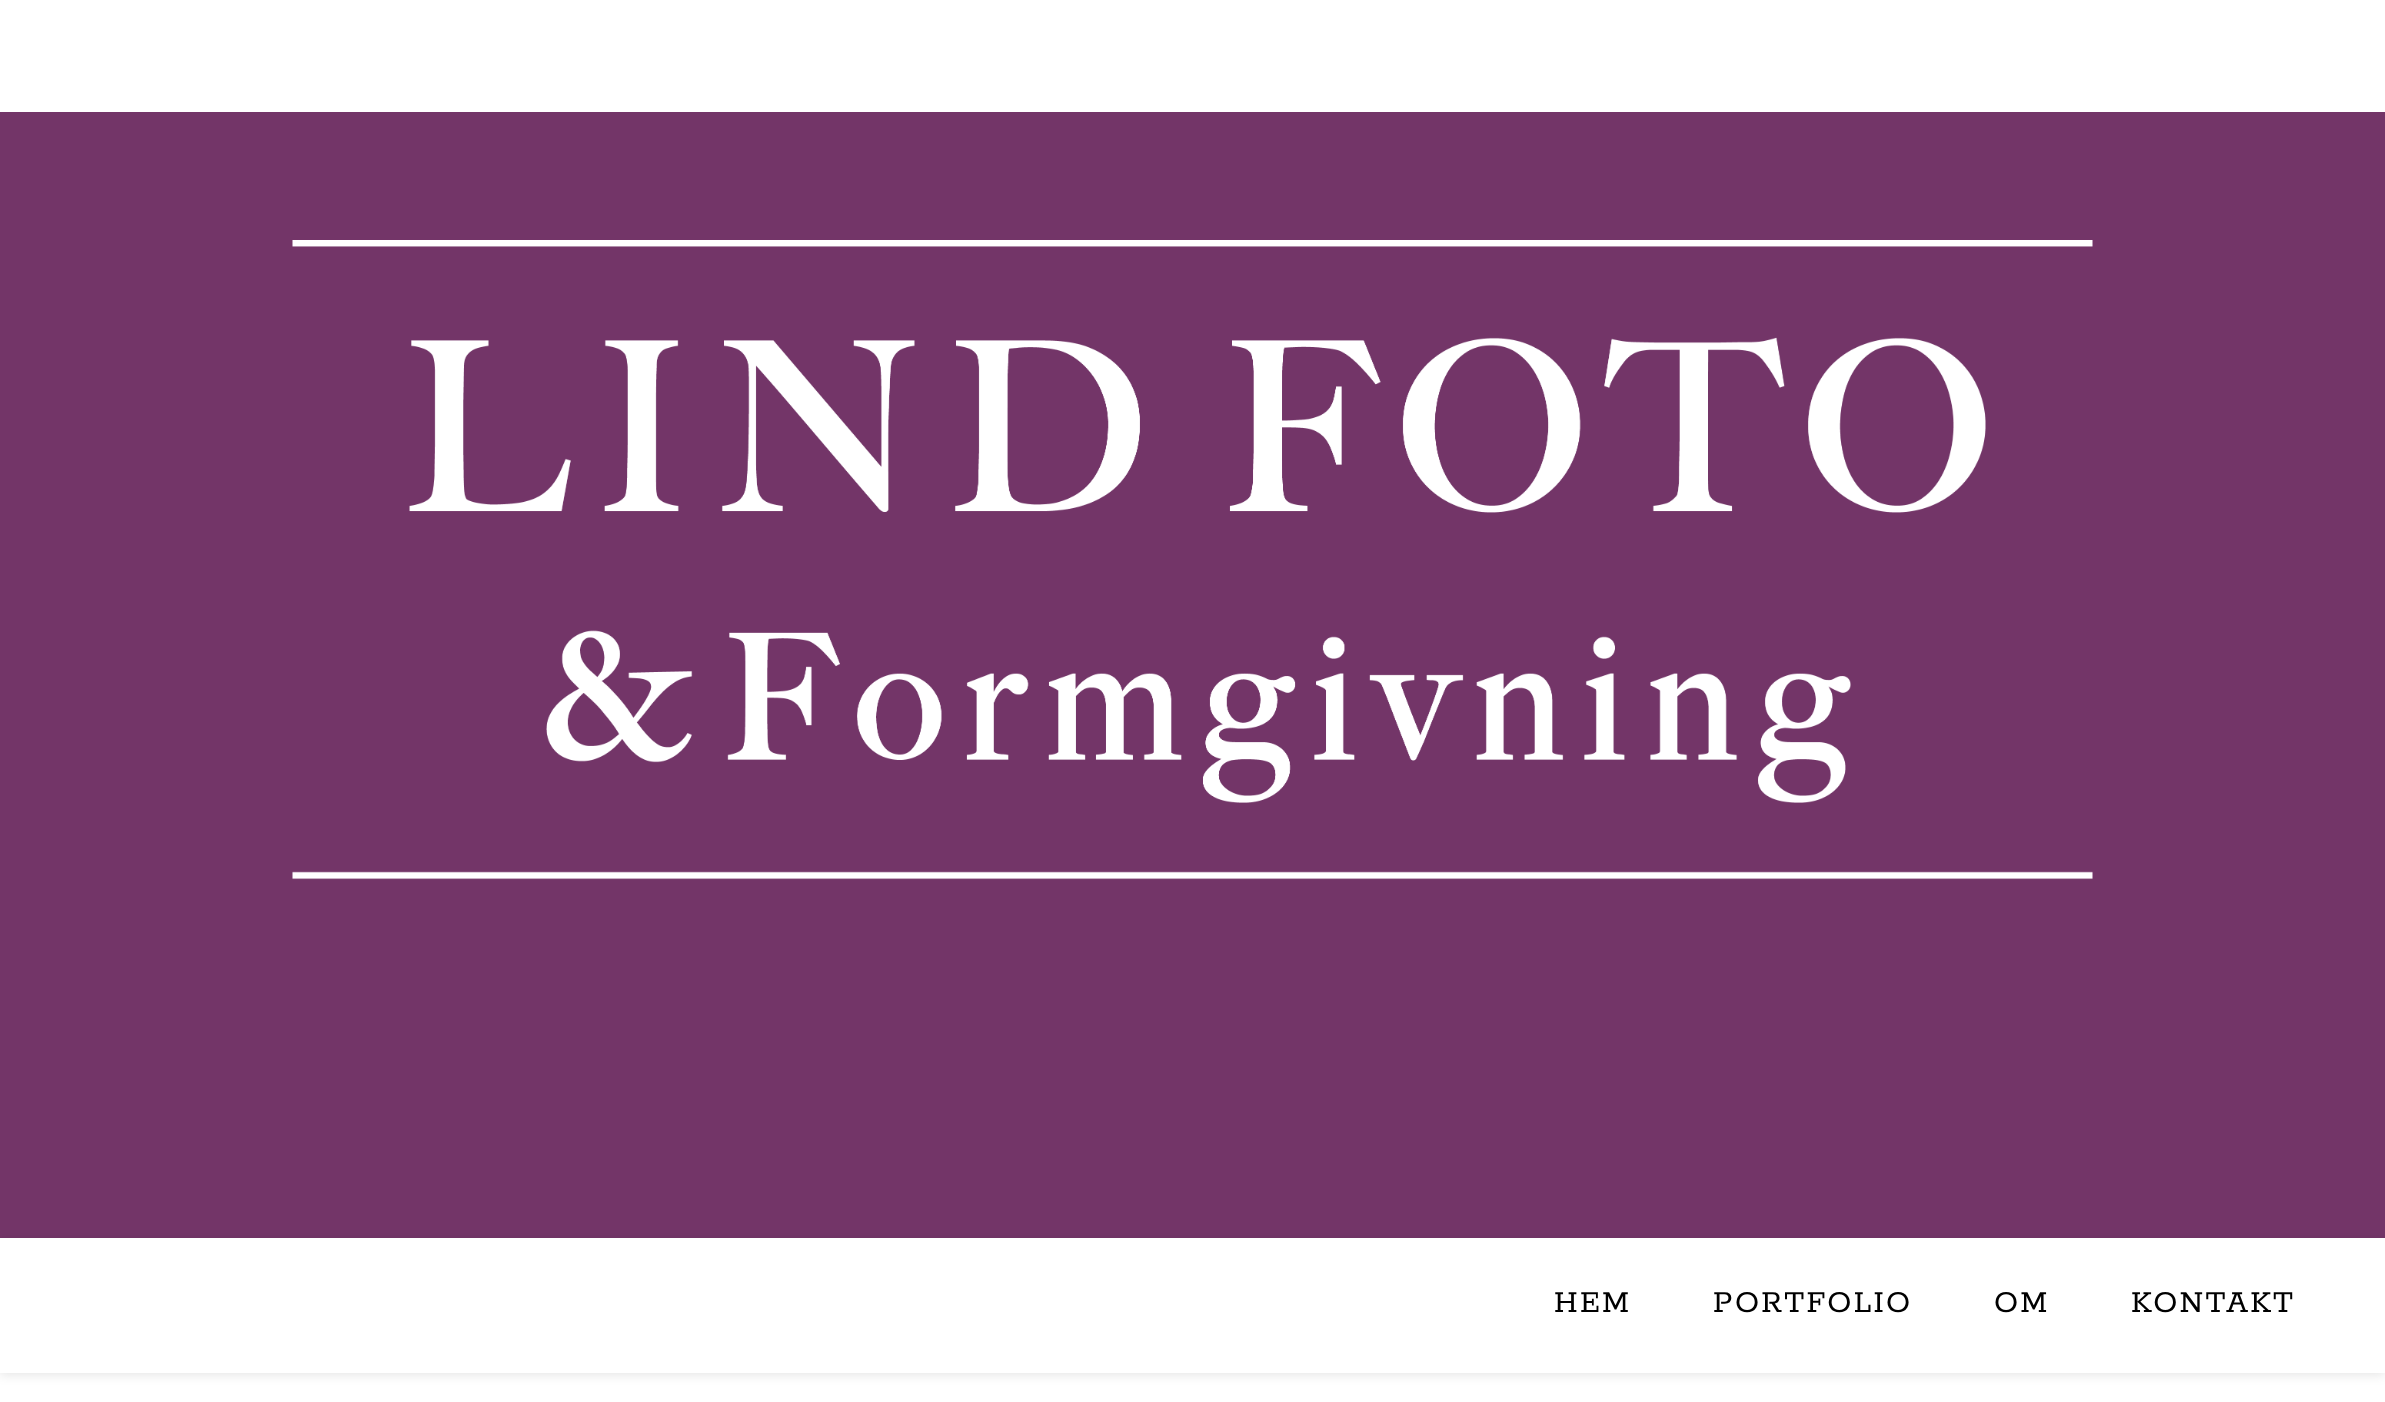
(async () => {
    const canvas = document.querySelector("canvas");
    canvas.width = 2385;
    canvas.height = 1402;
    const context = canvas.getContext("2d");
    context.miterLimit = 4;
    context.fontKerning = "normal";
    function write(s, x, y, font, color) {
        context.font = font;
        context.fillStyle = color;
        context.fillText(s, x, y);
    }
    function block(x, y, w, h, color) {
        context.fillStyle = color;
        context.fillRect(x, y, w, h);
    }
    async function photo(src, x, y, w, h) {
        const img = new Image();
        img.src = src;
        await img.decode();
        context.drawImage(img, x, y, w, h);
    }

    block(0, 0, 2385, 1402, "rgb(255, 255, 255)");
    block(0, 112, 2385, 1126, "rgb(115, 53, 104)");
    await photo("media/1.png", 292, 240, 1801, 640);
    context.fillStyle = "rgba(0, 0, 0, 0.1)";
    context.filter = "blur(5.5px)";
    context.beginPath();
    context.rect(0, 1240, 2385, 135);
    context.fill();
    context.filter = "none";
    block(0, 1238, 2385, 135, "rgb(255, 255, 255)");
    context.letterSpacing = "2.25px";
    write("HEM", 1554, 1312, "600 33.75px Rokkitt", "rgb(0, 0, 0)");
    write("PORTFOLIO", 1713, 1312, "600 33.75px Rokkitt", "rgb(0, 0, 0)");
    write("OM", 1994, 1312, "600 33.75px Rokkitt", "rgb(0, 0, 0)");
    write("KONTAKT", 2131, 1312, "600 33.75px Rokkitt", "rgb(0, 0, 0)");
})();
